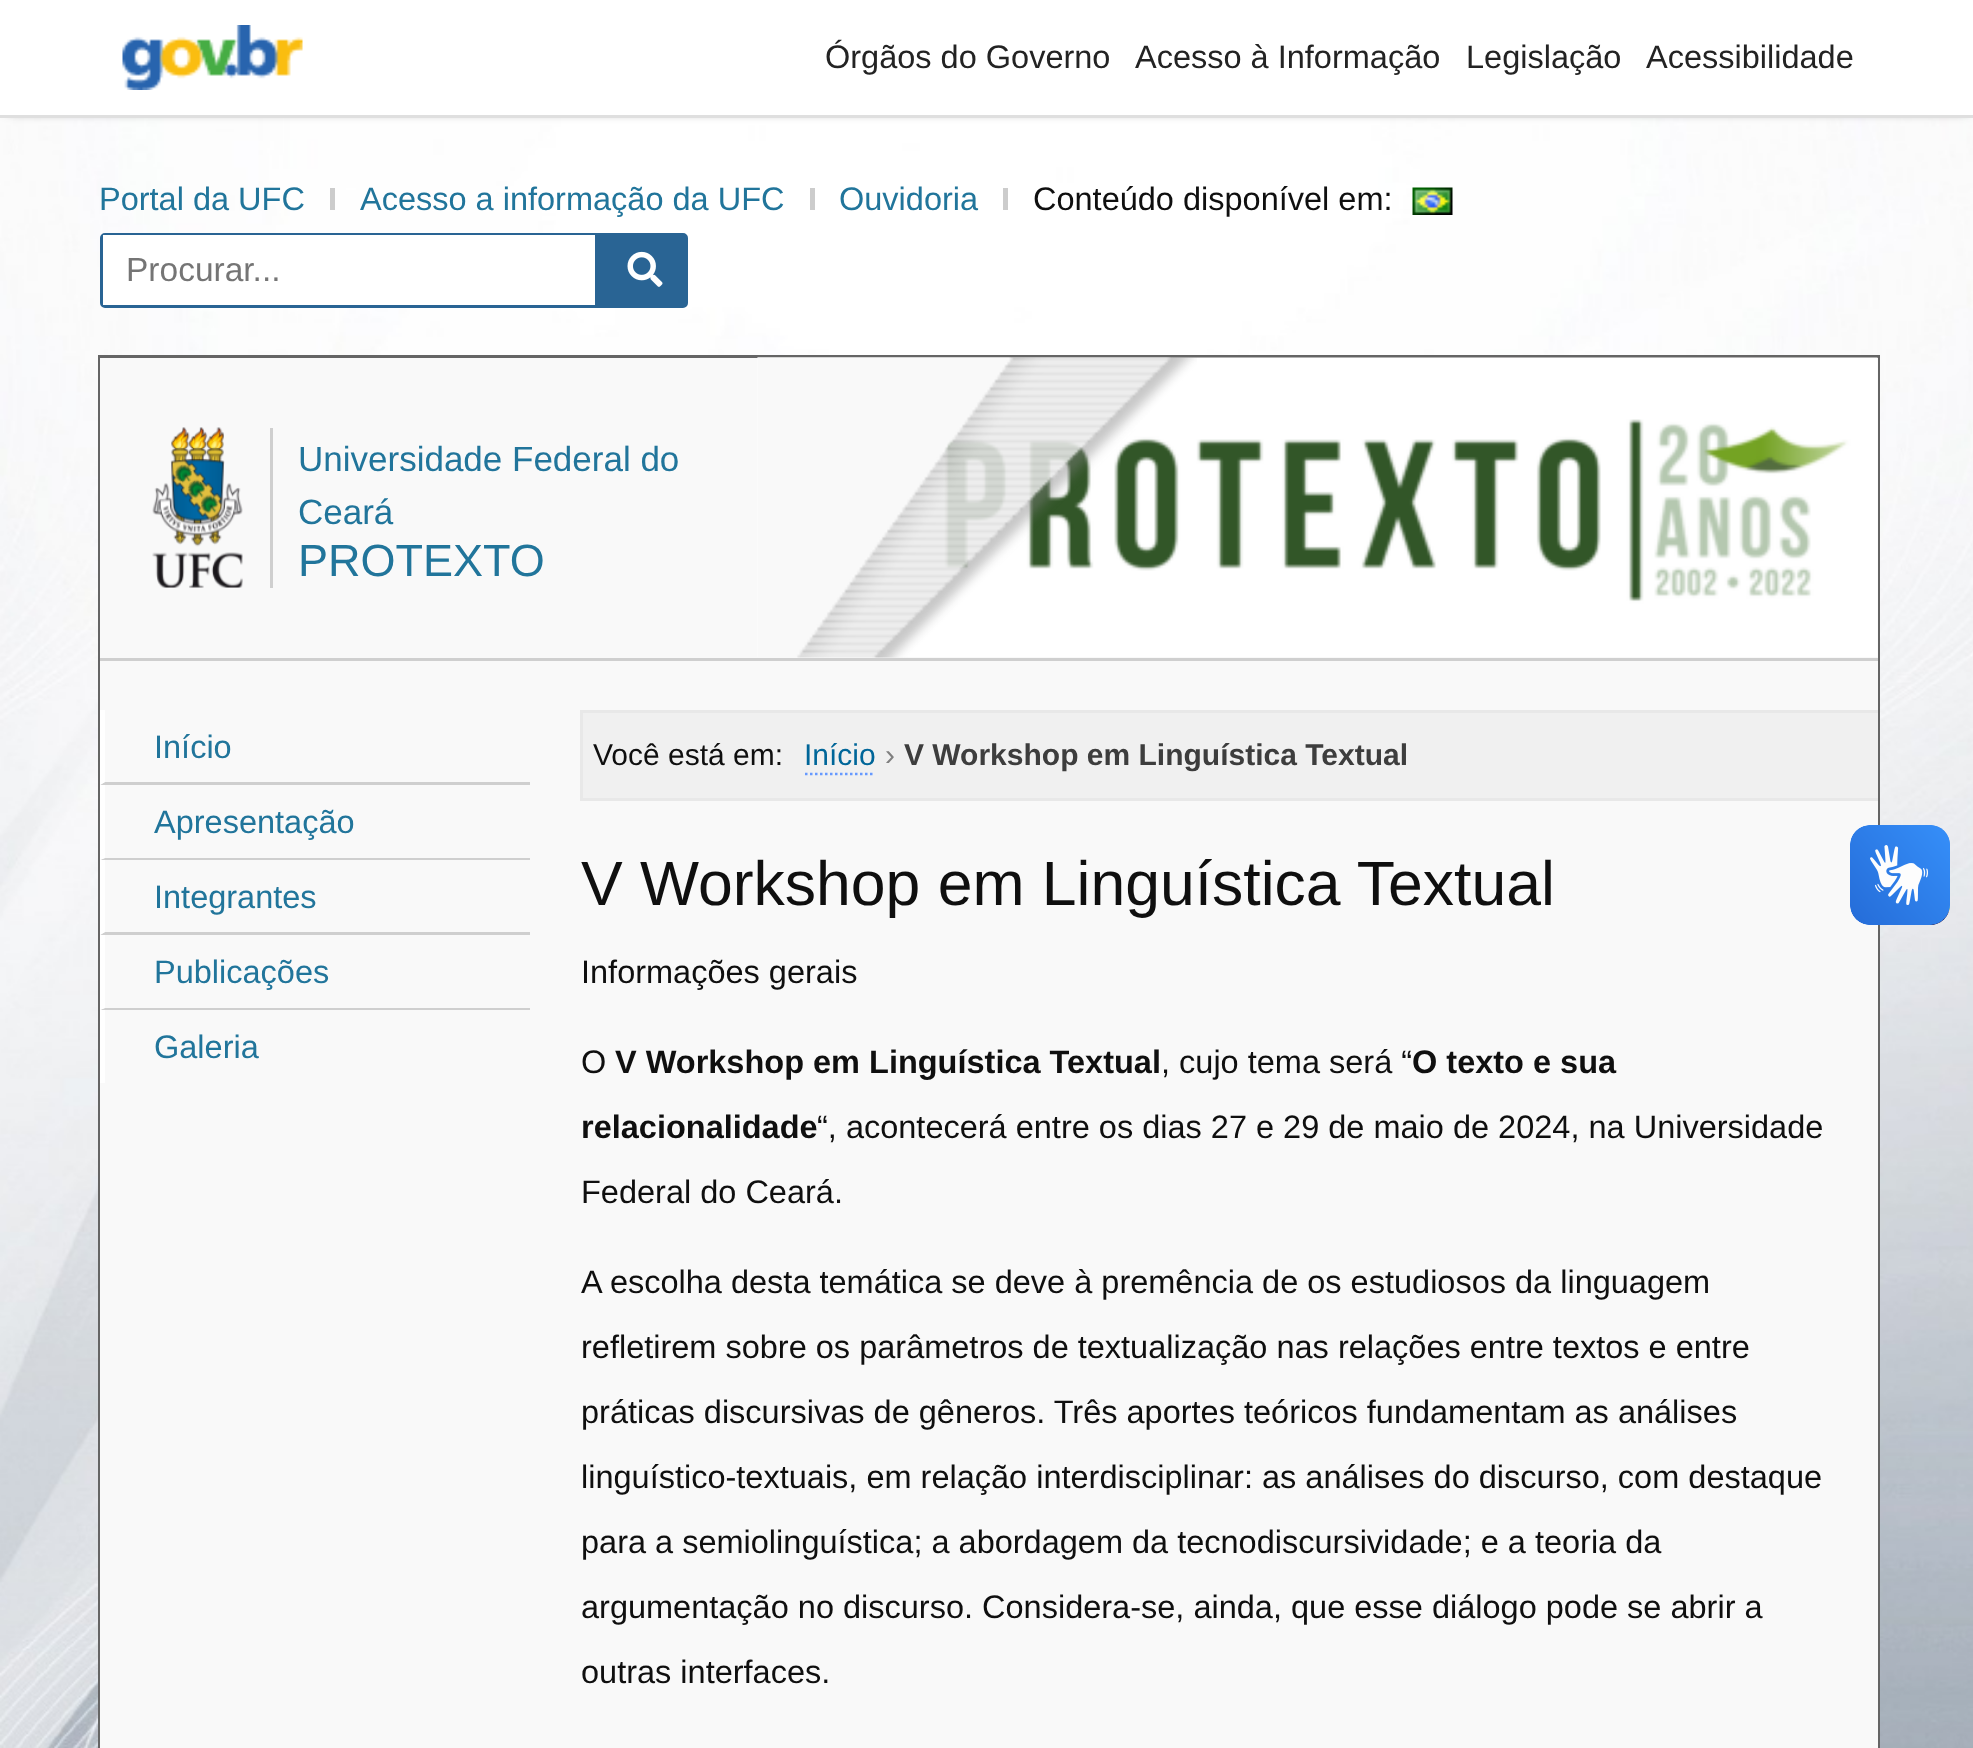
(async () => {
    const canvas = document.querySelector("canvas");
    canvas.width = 1973;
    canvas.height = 1748;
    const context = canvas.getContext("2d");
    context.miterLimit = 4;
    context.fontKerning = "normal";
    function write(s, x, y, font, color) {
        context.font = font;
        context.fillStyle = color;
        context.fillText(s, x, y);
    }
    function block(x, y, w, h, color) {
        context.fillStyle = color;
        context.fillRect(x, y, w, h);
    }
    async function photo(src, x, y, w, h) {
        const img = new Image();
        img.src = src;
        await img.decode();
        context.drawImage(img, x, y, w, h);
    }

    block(0, 0, 1973, 1748, "rgb(255, 255, 255)");
    await photo("media/1.png", 0, 118, 1973, 1630);
    context.fillStyle = "rgb(51, 51, 51)";
    context.filter = "blur(6px)";
    context.beginPath();
    context.rect(8, 8, 1960, 102);
    context.fill();
    context.filter = "none";
    block(0, 0, 1973, 115, "rgb(255, 255, 255)");
    block(0, 115, 1973, 3, "rgb(223, 223, 223)");
    await photo("media/2.png", 122, 25, 181, 65);
    write("Órgãos do Governo", 825, 68, "32.5px Liberation Sans", "rgb(35, 35, 35)");
    write("Acesso à Informação", 1135, 68, "32.5px Liberation Sans", "rgb(35, 35, 35)");
    write("Legislação", 1466, 68, "32.5px Liberation Sans", "rgb(35, 35, 35)");
    write("Acessibilidade", 1646, 68, "32.5px Liberation Sans", "rgb(35, 35, 35)");
    write("Portal da UFC", 99, 210, "32.5px Liberation Sans", "rgb(33, 117, 155)");
    block(330, 188, 5, 22, "rgb(204, 204, 204)");
    write("Acesso a informação da UFC", 360, 210, "32.5px Liberation Sans", "rgb(33, 117, 155)");
    block(810, 188, 5, 22, "rgb(204, 204, 204)");
    write("Ouvidoria", 839, 210, "32.5px Liberation Sans", "rgb(33, 117, 155)");
    block(1003, 188, 5, 22, "rgb(204, 204, 204)");
    write("Conteúdo disponível em:", 1033, 210, "32.5px Liberation Sans", "rgb(15, 15, 15)");
    await photo("media/3.png", 1412, 187, 41, 28);
    context.beginPath();
    context.roundRect(101.5, 234.5, 585, 72, 3.5);
    context.strokeStyle = "rgb(41, 100, 148)";
    context.lineWidth = 3;
    context.stroke();
    block(595, 236, 90, 69, "rgb(41, 100, 148)");
    block(103, 235, 492, 70, "rgb(255, 255, 255)");
    write("Procurar...", 126, 281, "33.5px Liberation Sans", "rgb(117, 117, 117)");
    await photo("media/4.png", 627, 251, 36, 36);
    context.strokeStyle = "rgb(101, 101, 101)";
    context.strokeRect(99.5, 356.5, 1779, 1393);
    block(100, 358, 1778, 1390, "rgb(249, 249, 249)");
    block(100, 658, 1778, 3, "rgb(207, 207, 207)");
    block(270, 428, 3, 160, "rgb(207, 207, 207)");
    await photo("media/5.png", 152, 427, 91, 161);
    write("Universidade Federal do", 298, 471, "35px Liberation Sans", "rgb(33, 117, 155)");
    write("Ceará", 298, 524, "35px Liberation Sans", "rgb(33, 117, 155)");
    write("PROTEXTO", 298, 576, "45px Liberation Sans", "rgb(33, 117, 155)");
    await photo("media/6.png", 757, 357, 1121, 300);
    await photo("media/7.png", 757, 357, 440, 301);
    context.fillStyle = "rgb(207, 207, 207)";
    context.beginPath();
    context.moveTo(530, 785);
    context.lineTo(100, 785);
    context.lineTo(105, 782);
    context.lineTo(530, 782);
    context.closePath();
    context.fill();
    context.fillStyle = "rgb(255, 255, 255)";
    context.beginPath();
    context.moveTo(100, 785);
    context.lineTo(100, 710);
    context.lineTo(105, 710);
    context.lineTo(105, 782);
    context.closePath();
    context.fill();
    write("Início", 154, 758, "32.5px Liberation Sans", "rgb(33, 117, 155)");
    context.fillStyle = "rgb(207, 207, 207)";
    context.beginPath();
    context.moveTo(530, 860);
    context.lineTo(100, 860);
    context.lineTo(105, 858);
    context.lineTo(530, 858);
    context.closePath();
    context.fill();
    context.fillStyle = "rgb(255, 255, 255)";
    context.beginPath();
    context.moveTo(100, 860);
    context.lineTo(100, 785);
    context.lineTo(105, 785);
    context.lineTo(105, 858);
    context.closePath();
    context.fill();
    write("Apresentação", 154, 833, "32.5px Liberation Sans", "rgb(33, 117, 155)");
    context.fillStyle = "rgb(207, 207, 207)";
    context.beginPath();
    context.moveTo(530, 935);
    context.lineTo(100, 935);
    context.lineTo(105, 932);
    context.lineTo(530, 932);
    context.closePath();
    context.fill();
    context.fillStyle = "rgb(255, 255, 255)";
    context.beginPath();
    context.moveTo(100, 935);
    context.lineTo(100, 860);
    context.lineTo(105, 860);
    context.lineTo(105, 932);
    context.closePath();
    context.fill();
    write("Integrantes", 154, 908, "32.5px Liberation Sans", "rgb(33, 117, 155)");
    context.fillStyle = "rgb(207, 207, 207)";
    context.beginPath();
    context.moveTo(530, 1010);
    context.lineTo(100, 1010);
    context.lineTo(105, 1008);
    context.lineTo(530, 1008);
    context.closePath();
    context.fill();
    context.fillStyle = "rgb(255, 255, 255)";
    context.beginPath();
    context.moveTo(100, 1010);
    context.lineTo(100, 935);
    context.lineTo(105, 935);
    context.lineTo(105, 1008);
    context.closePath();
    context.fill();
    write("Publicações", 154, 983, "32.5px Liberation Sans", "rgb(33, 117, 155)");
    block(100, 1010, 5, 73, "rgb(255, 255, 255)");
    write("Galeria", 154, 1058, "32.5px Liberation Sans", "rgb(33, 117, 155)");
    block(583, 713, 1295, 85, "rgb(240, 240, 240)");
    block(580, 710, 1298, 3, "rgb(232, 232, 232)");
    block(580, 798, 1298, 3, "rgb(232, 232, 232)");
    block(580, 710, 3, 90, "rgb(232, 232, 232)");
    write("Você está em:", 593, 765, "30px Liberation Sans", "rgb(15, 15, 15)");
    write("Início", 804, 765, "30px Liberation Sans", "rgb(0, 102, 153)");
    context.beginPath();
    context.moveTo(805, 774);
    context.lineTo(875, 774);
    context.strokeStyle = "rgb(102, 153, 255)";
    context.lineWidth = 2.5;
    context.setLineDash([2.5, 2.5]);
    context.stroke();
    write("›", 885, 765, "30px Liberation Sans", "rgb(128, 128, 128)");
    write("V Workshop em Linguística Textual", 904, 765, "bold 30px Liberation Sans", "rgb(61, 61, 61)");
    write("V Workshop em Linguística Textual", 581, 905, "62.5px Liberation Sans", "rgb(15, 15, 15)");
    write("Informações gerais", 581, 983, "32.5px Liberation Sans", "rgb(15, 15, 15)");
    write("O", 581, 1073, "32.5px Liberation Sans", "rgb(15, 15, 15)");
    write("V Workshop em Linguística Textual", 615, 1073, "bold 32.5px Liberation Sans", "rgb(15, 15, 15)");
    write(", cujo tema será “", 1161, 1073, "32.5px Liberation Sans", "rgb(15, 15, 15)");
    write("O texto e sua", 1412, 1073, "bold 32.5px Liberation Sans", "rgb(15, 15, 15)");
    write("relacionalidade", 581, 1138, "bold 32.5px Liberation Sans", "rgb(15, 15, 15)");
    write("“, acontecerá entre os dias 27 e 29 de maio de 2024, na Universidade", 817, 1138, "32.5px Liberation Sans", "rgb(15, 15, 15)");
    write("Federal do Ceará.", 581, 1203, "32.5px Liberation Sans", "rgb(15, 15, 15)");
    write("A escolha desta temática se deve à premência de os estudiosos da linguagem", 581, 1293, "32.5px Liberation Sans", "rgb(15, 15, 15)");
    write("refletirem sobre os parâmetros de textualização nas relações entre textos e entre", 581, 1358, "32.5px Liberation Sans", "rgb(15, 15, 15)");
    write("práticas discursivas de gêneros. Três aportes teóricos fundamentam as análises", 581, 1423, "32.5px Liberation Sans", "rgb(15, 15, 15)");
    write("linguístico-textuais, em relação interdisciplinar: as análises do discurso, com destaque", 581, 1488, "32.5px Liberation Sans", "rgb(15, 15, 15)");
    write("para a semiolinguística; a abordagem da tecnodiscursividade; e a teoria da", 581, 1553, "32.5px Liberation Sans", "rgb(15, 15, 15)");
    write("argumentação no discurso. Considera-se, ainda, que esse diálogo pode se abrir a", 581, 1618, "32.5px Liberation Sans", "rgb(15, 15, 15)");
    write("outras interfaces.", 581, 1683, "32.5px Liberation Sans", "rgb(15, 15, 15)");
    await photo("media/8.png", 1850, 825, 100, 100);
    await photo("media/9.png", 1850, 825, 100, 100);
})();
